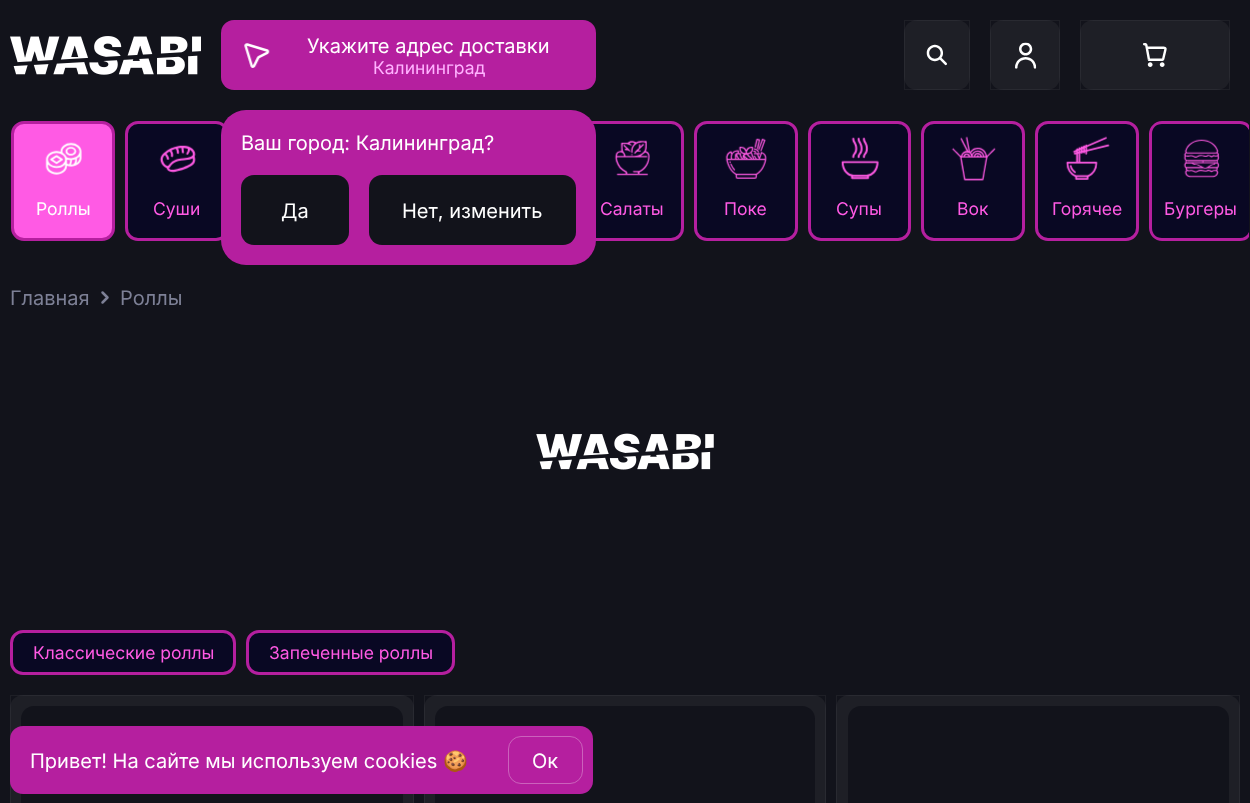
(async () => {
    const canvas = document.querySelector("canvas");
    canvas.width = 1250;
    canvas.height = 803;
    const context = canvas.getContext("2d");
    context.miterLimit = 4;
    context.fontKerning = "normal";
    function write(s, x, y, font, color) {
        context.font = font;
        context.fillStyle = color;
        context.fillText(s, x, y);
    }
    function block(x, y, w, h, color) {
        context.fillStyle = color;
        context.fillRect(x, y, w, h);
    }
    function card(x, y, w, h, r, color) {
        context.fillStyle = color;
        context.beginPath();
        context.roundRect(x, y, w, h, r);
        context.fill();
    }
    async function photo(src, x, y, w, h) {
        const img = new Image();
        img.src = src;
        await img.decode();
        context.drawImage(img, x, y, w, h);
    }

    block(0, 0, 1250, 803, "rgb(18, 19, 27)");
    await photo("media/1.png", 10, 36, 191, 39);
    card(221, 20, 375, 70, 13, "rgb(181, 31, 159)");
    await photo("media/2.png", 244, 43, 26, 25);
    write("Укажите адрес доставки", 307, 53, "20px Inter", "rgb(255, 255, 255)");
    write("Калининград", 373, 74, "17.5px Inter", "rgb(255, 179, 255)");
    context.fillStyle = "rgb(9, 8, 35)";
    context.beginPath();
    context.roundRect(126.5, 122.5, 101, 117, 11.5);
    context.fill();
    context.strokeStyle = "rgb(181, 31, 159)";
    context.lineWidth = 3;
    context.stroke();
    context.beginPath();
    context.roundRect(581.5, 122.5, 101, 117, 11.5);
    context.fill();
    context.stroke();
    card(221, 110, 375, 155, 25, "rgb(181, 31, 159)");
    write("Ваш город: Калининград?", 241, 150, "20px Inter", "rgb(255, 255, 255)");
    card(241, 175, 108, 70, 13, "rgb(18, 19, 27)");
    write("Да", 281, 218, "20px Inter", "rgb(255, 255, 255)");
    card(369, 175, 207, 70, 13, "rgb(18, 19, 27)");
    write("Нет, изменить", 402, 218, "20px Inter", "rgb(255, 255, 255)");
    card(904, 20, 66, 70, 13, "rgb(30, 31, 38)");
    context.strokeStyle = "rgba(255, 255, 255, 0.05)";
    context.lineWidth = 1;
    context.strokeRect(904.5, 20.5, 65, 69);
    await photo("media/3.png", 926, 44, 21, 22);
    card(990, 20, 70, 70, 13, "rgb(30, 31, 38)");
    context.strokeRect(990.5, 20.5, 69, 69);
    await photo("media/4.png", 1015, 42, 22, 27);
    card(1080, 20, 150, 70, 13, "rgb(30, 31, 38)");
    context.strokeRect(1080.5, 20.5, 149, 69);
    await photo("media/5.png", 1143, 43, 24, 24);
    context.fillStyle = "rgb(255, 90, 228)";
    context.beginPath();
    context.roundRect(12.5, 122.5, 101, 117, 11.5);
    context.fill();
    context.strokeStyle = "rgb(181, 31, 159)";
    context.lineWidth = 3;
    context.stroke();
    await photo("media/6.png", 45, 142, 37, 33);
    write("Роллы", 36, 215, "17.5px Inter", "rgb(255, 255, 255)");
    await photo("media/7.png", 159, 145, 37, 28);
    write("Суши", 153, 215, "17.5px Inter", "rgb(255, 90, 228)");
    await photo("media/8.png", 614, 140, 36, 36);
    write("Салаты", 600, 215, "17.5px Inter", "rgb(255, 90, 228)");
    context.fillStyle = "rgb(9, 8, 35)";
    context.beginPath();
    context.roundRect(695.5, 122.5, 101, 117, 11.5);
    context.fill();
    context.stroke();
    await photo("media/9.png", 725, 138, 42, 41);
    write("Поке", 724, 215, "17.5px Inter", "rgb(255, 90, 228)");
    context.fillStyle = "rgb(9, 8, 35)";
    context.beginPath();
    context.roundRect(809.5, 122.5, 100, 117, 11.5);
    context.fill();
    context.stroke();
    await photo("media/10.png", 841, 137, 38, 43);
    write("Супы", 836, 215, "17.5px Inter", "rgb(255, 90, 228)");
    context.fillStyle = "rgb(9, 8, 35)";
    context.beginPath();
    context.roundRect(922.5, 122.5, 101, 117, 11.5);
    context.fill();
    context.stroke();
    await photo("media/11.png", 951, 136, 45, 45);
    write("Вок", 957, 215, "17.5px Inter", "rgb(255, 90, 228)");
    context.fillStyle = "rgb(9, 8, 35)";
    context.beginPath();
    context.roundRect(1036.5, 122.5, 101, 117, 11.5);
    context.fill();
    context.stroke();
    await photo("media/12.png", 1065, 136, 45, 44);
    write("Горячее", 1052, 215, "17.5px Inter", "rgb(255, 90, 228)");
    context.save();
    context.beginPath();
    context.rect(1, 121, 1248, 120);
    context.clip();
    card(1149, 121, 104, 120, 13, "rgb(9, 8, 35)");
    context.restore();
    context.fillStyle = "rgb(181, 31, 159)";
    context.beginPath();
    context.moveTo(1162, 121);
    context.bezierCurveTo(1155, 121, 1149, 127, 1149, 134);
    context.lineTo(1149, 228);
    context.bezierCurveTo(1149, 235, 1155, 241, 1162, 241);
    context.lineTo(1240, 241);
    context.bezierCurveTo(1243, 241, 1247, 240, 1249, 237);
    context.lineTo(1249, 232);
    context.bezierCurveTo(1247, 236, 1244, 238, 1240, 238);
    context.lineTo(1162, 238);
    context.bezierCurveTo(1156, 238, 1152, 234, 1152, 228);
    context.lineTo(1152, 134);
    context.bezierCurveTo(1152, 128, 1156, 124, 1162, 124);
    context.lineTo(1240, 124);
    context.bezierCurveTo(1244, 124, 1247, 126, 1249, 130);
    context.lineTo(1249, 125);
    context.bezierCurveTo(1247, 122, 1243, 121, 1240, 121);
    context.closePath();
    context.fill();
    await photo("media/13.png", 1183, 139, 37, 39);
    write("Бургеры", 1164, 215, "17.5px Inter", "rgb(255, 90, 228)");
    write("Главная", 10, 305, "20px Inter", "rgb(125, 128, 150)");
    await photo("media/14.png", 101, 291, 8, 13);
    write("Роллы", 120, 305, "20px Inter", "rgb(125, 128, 150)");
    await photo("media/15.png", 536, 433, 178, 37);
    context.fillStyle = "rgb(9, 8, 35)";
    context.beginPath();
    context.roundRect(11.5, 631.5, 223, 42, 11.5);
    context.fill();
    context.stroke();
    write("Классические роллы", 33, 659, "17.5px Inter", "rgb(255, 90, 228)");
    context.fillStyle = "rgb(9, 8, 35)";
    context.beginPath();
    context.roundRect(247.5, 631.5, 206, 42, 11.5);
    context.fill();
    context.stroke();
    write("Запеченные роллы", 269, 659, "17.5px Inter", "rgb(255, 90, 228)");
    card(10, 695, 404, 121, 13, "rgb(30, 31, 38)");
    context.strokeStyle = "rgba(255, 255, 255, 0.05)";
    context.lineWidth = 1;
    context.strokeRect(10.5, 695.5, 403, 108);
    card(21, 706, 382, 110, 13, "rgb(18, 19, 27)");
    card(424, 695, 402, 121, 13, "rgb(30, 31, 38)");
    context.strokeRect(424.5, 695.5, 401, 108);
    card(435, 706, 380, 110, 13, "rgb(18, 19, 27)");
    card(836, 695, 404, 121, 13, "rgb(30, 31, 38)");
    context.strokeRect(836.5, 695.5, 403, 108);
    card(848, 706, 381, 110, 13, "rgb(18, 19, 27)");
    card(10, 726, 583, 68, 13, "rgb(181, 31, 159)");
    write("Привет! На сайте мы используем cookies", 30, 768, "20px Inter", "rgb(255, 255, 255)");
    write("🍪", 443, 768, "20px Noto Color Emoji", "rgb(255, 255, 255)");
    context.beginPath();
    context.roundRect(508.5, 736.5, 74, 47, 12.5);
    context.strokeStyle = "rgb(203, 98, 188)";
    context.stroke();
    write("Oк", 532, 768, "20px Inter", "rgb(255, 255, 255)");
})();
